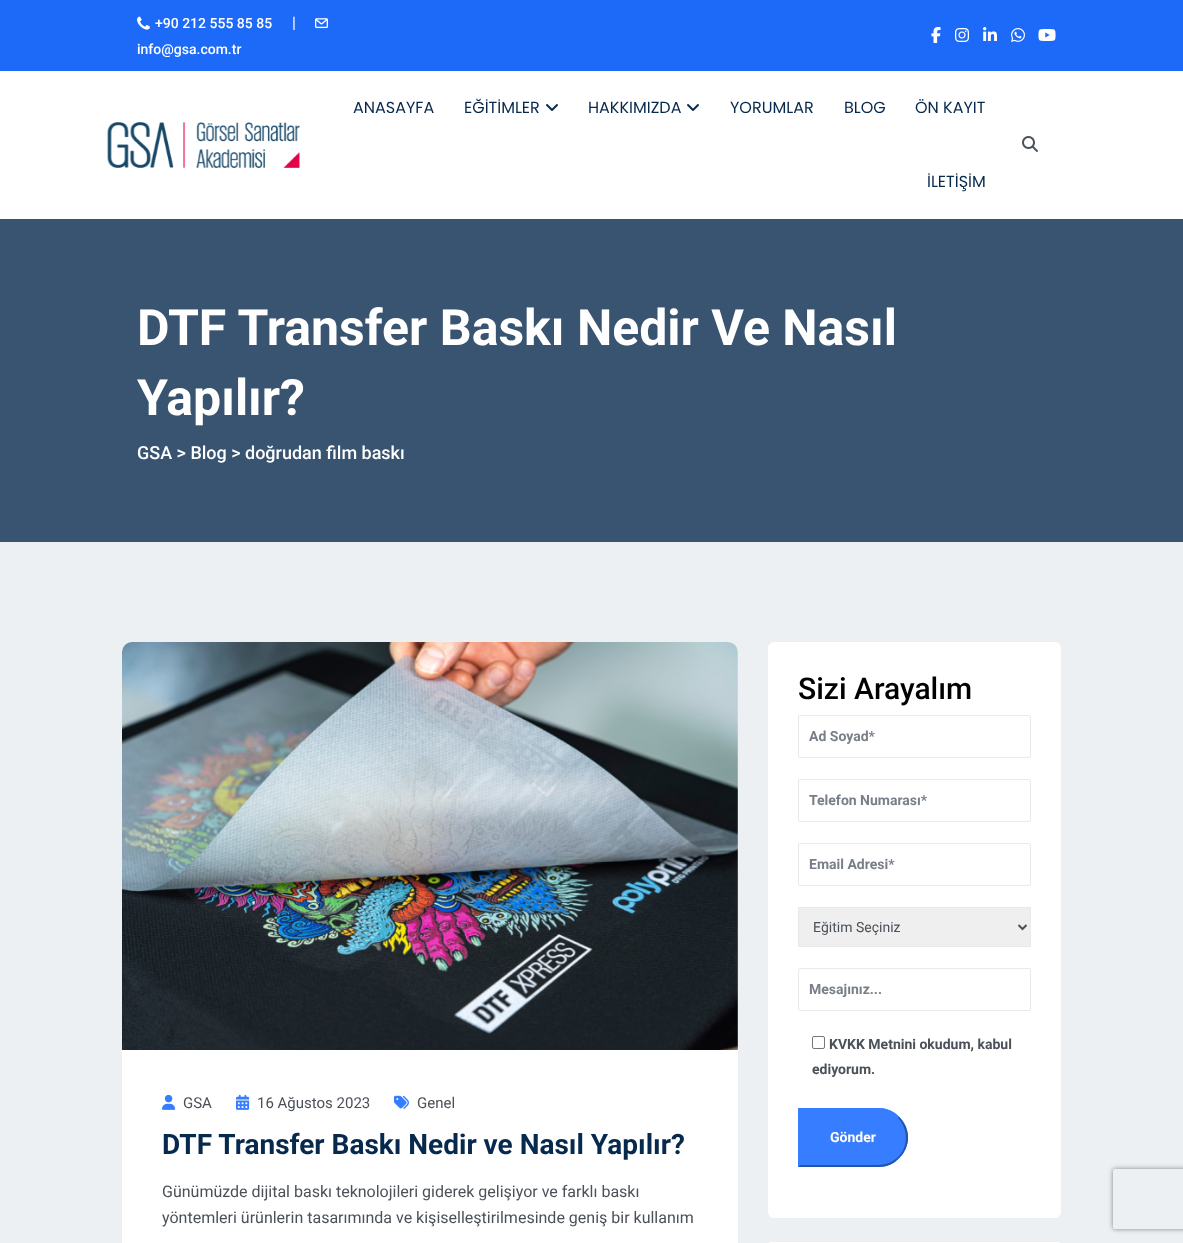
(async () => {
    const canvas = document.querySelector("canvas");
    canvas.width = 1183;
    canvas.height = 1243;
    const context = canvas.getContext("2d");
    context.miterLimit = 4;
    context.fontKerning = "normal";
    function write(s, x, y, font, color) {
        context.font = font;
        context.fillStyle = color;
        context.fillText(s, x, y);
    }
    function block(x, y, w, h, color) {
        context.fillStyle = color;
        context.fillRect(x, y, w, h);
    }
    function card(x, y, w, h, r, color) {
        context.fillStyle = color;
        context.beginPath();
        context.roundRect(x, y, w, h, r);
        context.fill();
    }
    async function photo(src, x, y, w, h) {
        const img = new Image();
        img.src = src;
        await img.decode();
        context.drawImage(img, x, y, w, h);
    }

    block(0, 0, 1183, 1243, "rgb(255, 255, 255)");
    block(0, 0, 1183, 71, "rgb(29, 106, 249)");
    await photo("media/1.png", 137, 16, 13, 14);
    write("+90 212 555 85 85", 155, 28, "500 14px Roboto", "rgb(255, 255, 255)");
    write("|", 292, 28, "16px Roboto", "rgb(255, 255, 255)");
    await photo("media/2.png", 315, 18, 13, 11);
    write("info@gsa.com.tr", 137, 54, "500 14px Roboto", "rgb(255, 255, 255)");
    await photo("media/3.png", 931, 27, 10, 16);
    await photo("media/4.png", 955, 28, 14, 14);
    await photo("media/5.png", 983, 27, 14, 14);
    await photo("media/6.png", 1011, 28, 14, 14);
    await photo("media/7.png", 1038, 29, 18, 12);
    await photo("media/8.png", 107, 122, 193, 46);
    write("ANASAYFA", 353, 113, "16px Poppins", "rgb(7, 41, 77)");
    write("EĞİTİMLER", 464, 113, "16px Poppins", "rgb(7, 41, 77)");
    await photo("media/9.png", 546, 104, 12, 7);
    write("HAKKIMIZDA", 588, 113, "16px Poppins", "rgb(7, 41, 77)");
    await photo("media/9.png", 687, 104, 12, 7);
    write("YORUMLAR", 730, 113, "16px Poppins", "rgb(7, 41, 77)");
    write("BLOG", 844, 113, "16px Poppins", "rgb(7, 41, 77)");
    write("ÖN KAYIT", 915, 113, "16px Poppins", "rgb(7, 41, 77)");
    write("İLETİŞİM", 927, 187, "16px Poppins", "rgb(7, 41, 77)");
    await photo("media/10.png", 1022, 136, 16, 16);
    block(0, 219, 1183, 323, "rgb(57, 84, 113)");
    write("DTF Transfer Baskı Nedir Ve Nasıl", 137, 345, "bold 50px Roboto", "rgb(255, 255, 255)");
    write("Yapılır?", 137, 415, "bold 50px Roboto", "rgb(255, 255, 255)");
    write("GSA > Blog >", 137, 459, "500 18px Roboto", "rgb(255, 255, 255)");
    write("doğrudan film baskı", 245, 459, "500 18px Roboto", "rgb(255, 255, 255)");
    block(0, 542, 1183, 701, "rgb(237, 240, 242)");
    card(768, 642, 293, 576, 6, "rgb(255, 255, 255)");
    write("Sizi Arayalım", 798, 699, "500 30px Roboto", "rgb(0, 0, 0)");
    context.beginPath();
    context.roundRect(798.5, 715.5, 232, 42, 1.5);
    context.strokeStyle = "rgb(232, 233, 235)";
    context.stroke();
    write("Ad Soyad*", 809, 741, "bold 14px Roboto", "rgb(120, 127, 136)");
    context.beginPath();
    context.roundRect(798.5, 779.5, 232, 42, 1.5);
    context.stroke();
    write("Telefon Numarası*", 809, 805, "bold 14px Roboto", "rgb(120, 127, 136)");
    context.beginPath();
    context.roundRect(798.5, 843.5, 232, 42, 1.5);
    context.stroke();
    write("Email Adresi*", 809, 869, "bold 14px Roboto", "rgb(120, 127, 136)");
    context.fillStyle = "rgb(239, 239, 239)";
    context.beginPath();
    context.rect(798.5, 907.5, 232, 39);
    context.fill();
    context.stroke();
    context.beginPath();
    context.moveTo(1018.5, 925);
    context.lineTo(1022.5, 929);
    context.lineTo(1026.5, 925);
    context.strokeStyle = "rgb(75, 81, 88)";
    context.lineWidth = 2;
    context.stroke();
    write("Eğitim Seçiniz", 813, 932, "14px Roboto", "rgb(75, 81, 88)");
    context.beginPath();
    context.roundRect(798.5, 968.5, 232, 42, 1.5);
    context.strokeStyle = "rgb(232, 233, 235)";
    context.lineWidth = 1;
    context.stroke();
    write("Mesajınız...", 809, 994, "bold 14px Roboto", "rgb(120, 127, 136)");
    context.beginPath();
    context.roundRect(812.5, 1036.5, 12, 12, 1.5);
    context.strokeStyle = "rgb(118, 118, 118)";
    context.stroke();
    write("KVKK Metnini okudum, kabul", 829, 1049, "bold 14px Roboto", "rgb(75, 81, 88)");
    write("ediyorum.", 812, 1074, "bold 14px Roboto", "rgb(75, 81, 88)");
    context.fillStyle = "rgb(55, 125, 255)";
    context.beginPath();
    context.roundRect(798, 1108, 110, 59, [0, 29.5, 29.5, 0]);
    context.fill();
    context.beginPath();
    context.moveTo(798, 1108);
    context.lineTo(800, 1110);
    context.lineTo(878, 1110);
    context.bezierCurveTo(886, 1110, 893, 1113, 898, 1118);
    context.lineTo(899, 1117);
    context.bezierCurveTo(894, 1111, 886, 1108, 878, 1108);
    context.closePath();
    context.fill();
    context.fillStyle = "rgb(37, 83, 170)";
    context.beginPath();
    context.moveTo(899, 1117);
    context.bezierCurveTo(911, 1128, 911, 1147, 899, 1158);
    context.lineTo(898, 1157);
    context.bezierCurveTo(909, 1147, 908, 1128, 898, 1118);
    context.closePath();
    context.fill();
    context.beginPath();
    context.moveTo(878, 1167);
    context.bezierCurveTo(887, 1167, 894, 1164, 899, 1158);
    context.lineTo(898, 1157);
    context.bezierCurveTo(893, 1162, 886, 1165, 878, 1165);
    context.lineTo(800, 1165);
    context.lineTo(798, 1167);
    context.closePath();
    context.fill();
    context.fillStyle = "rgb(55, 125, 255)";
    context.beginPath();
    context.moveTo(798, 1108);
    context.lineTo(798, 1167);
    context.lineTo(800, 1165);
    context.lineTo(800, 1110);
    context.closePath();
    context.fill();
    write("Gönder", 830, 1142, "bold 14px Roboto", "rgb(255, 255, 255)");
    card(768, 1242, 293, 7, 6, "rgb(255, 255, 255)");
    card(122, 642, 616, 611, 10, "rgb(255, 255, 255)");
    await photo("media/11.png", 122, 642, 616, 408);
    await photo("media/12.png", 162, 1094, 14, 16);
    write("GSA", 183, 1108, "15px Roboto", "rgb(75, 81, 88)");
    await photo("media/13.png", 236, 1094, 14, 16);
    write("16 Ağustos 2023", 257, 1108, "15px Roboto", "rgb(75, 81, 88)");
    await photo("media/14.png", 394, 1095, 15, 14);
    write("Genel", 417, 1108, "15px Roboto", "rgb(75, 81, 88)");
    write("DTF Transfer Baskı Nedir ve Nasıl Yapılır?", 162, 1154, "bold 28px Roboto", "rgb(7, 41, 77)");
    write("Günümüzde dijital baskı teknolojileri giderek gelişiyor ve farklı baskı", 162, 1197, "16px Roboto", "rgb(75, 81, 88)");
    write("yöntemleri ürünlerin tasarımında ve kişiselleştirilmesinde geniş bir kullanım", 162, 1223, "16px Roboto", "rgb(75, 81, 88)");
    context.save();
    context.beginPath();
    context.moveTo(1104, 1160);
    context.lineTo(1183, 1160);
    context.lineTo(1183, 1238);
    context.lineTo(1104, 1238);
    context.closePath();
    context.moveTo(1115, 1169);
    context.lineTo(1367, 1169);
    context.bezierCurveTo(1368, 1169, 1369, 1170, 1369, 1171);
    context.lineTo(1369, 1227);
    context.bezierCurveTo(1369, 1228, 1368, 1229, 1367, 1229);
    context.lineTo(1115, 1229);
    context.bezierCurveTo(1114, 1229, 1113, 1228, 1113, 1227);
    context.lineTo(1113, 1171);
    context.bezierCurveTo(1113, 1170, 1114, 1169, 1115, 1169);
    context.closePath();
    context.clip("evenodd");
    context.fillStyle = "rgb(128, 128, 128)";
    context.filter = "blur(2.5px)";
    context.beginPath();
    context.roundRect(1113, 1169, 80, 60, 2);
    context.fill();
    context.filter = "none";
    context.restore();
})();
